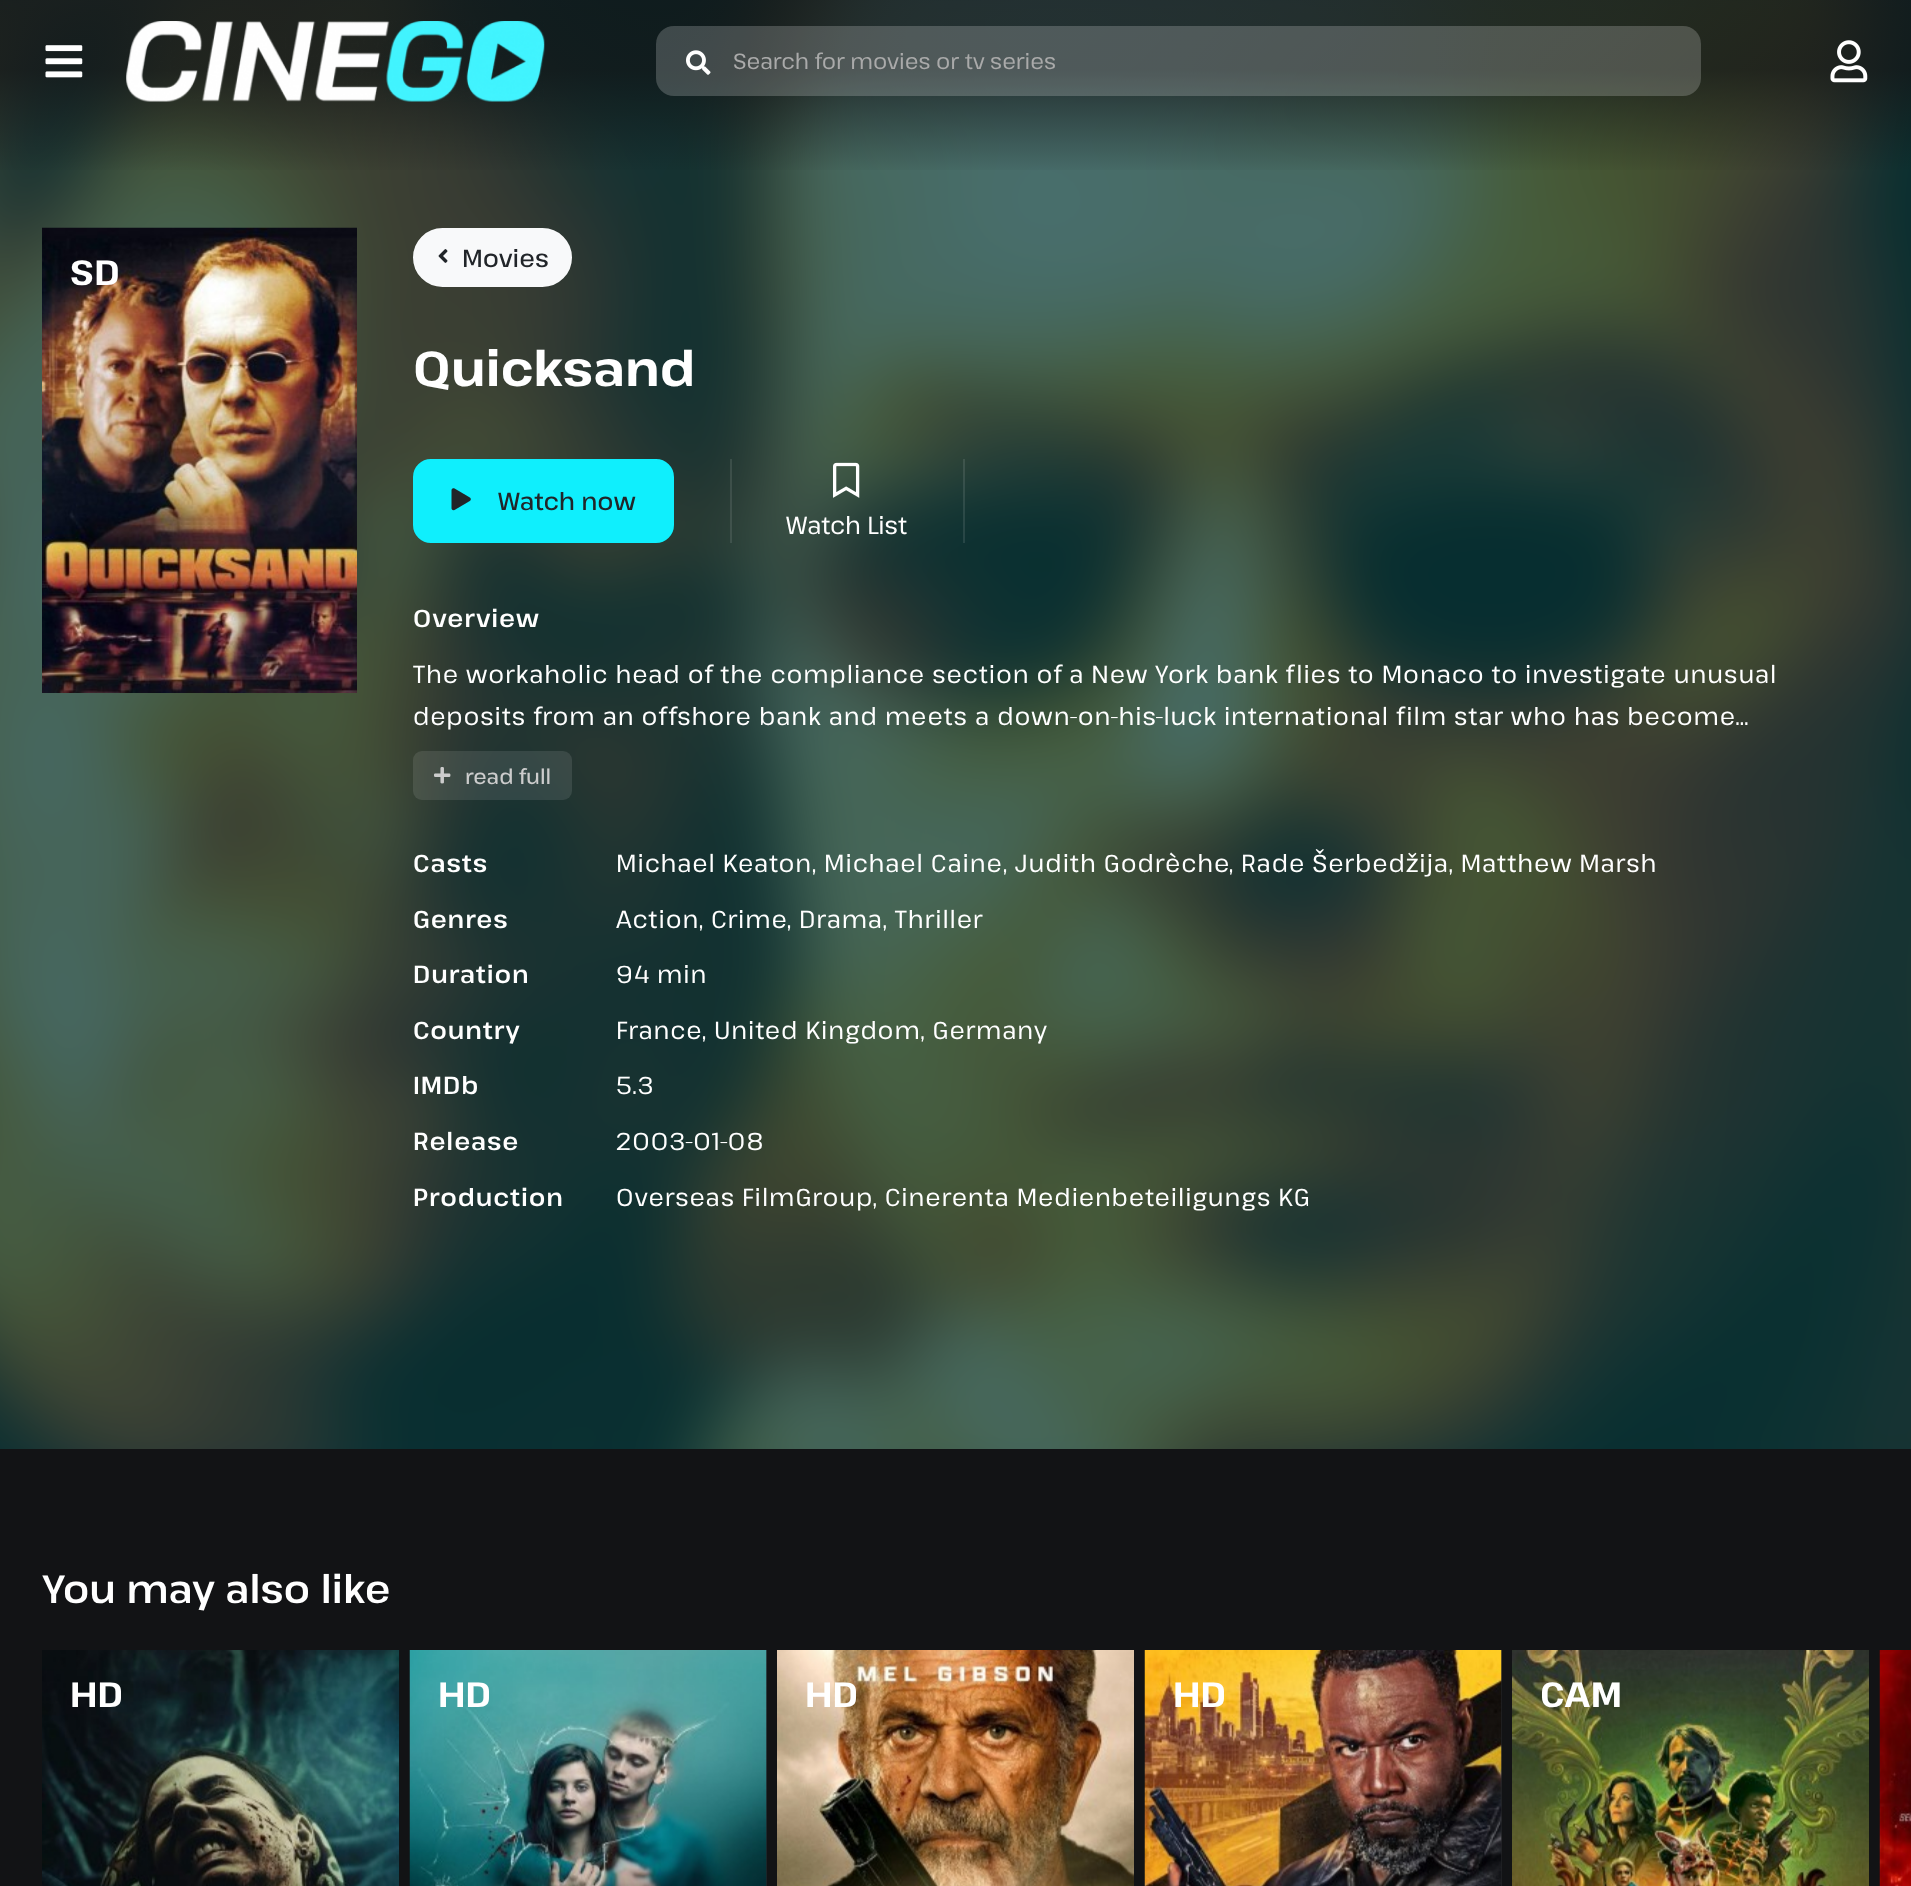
(async () => {
    const canvas = document.querySelector("canvas");
    canvas.width = 1911;
    canvas.height = 1886;
    const context = canvas.getContext("2d");
    context.miterLimit = 4;
    context.fontKerning = "normal";
    function write(s, x, y, font, color) {
        context.font = font;
        context.fillStyle = color;
        context.fillText(s, x, y);
    }
    function block(x, y, w, h, color) {
        context.fillStyle = color;
        context.fillRect(x, y, w, h);
    }
    function card(x, y, w, h, r, color) {
        context.fillStyle = color;
        context.beginPath();
        context.roundRect(x, y, w, h, r);
        context.fill();
    }
    async function photo(src, x, y, w, h) {
        const img = new Image();
        img.src = src;
        await img.decode();
        context.drawImage(img, x, y, w, h);
    }
    let gradient;

    block(0, 0, 1911, 1886, "rgb(18, 19, 21)");
    block(0, 0, 1911, 1449, "rgb(0, 56, 60)");
    await photo("media/5.png", 0, 0, 1911, 1449);
    gradient = context.createLinearGradient(956, 175, 956, 0);
    gradient.addColorStop(0, "rgba(18, 19, 21, 0)");
    gradient.addColorStop(0.6, "rgba(18, 19, 21, 0.68)");
    context.fillStyle = gradient;
    context.fillRect(0, 0, 1911, 170);
    await photo("media/1.png", 45, 45, 38, 33);
    await photo("media/2.png", 126, 21, 419, 81);
    card(656, 26, 1045, 70, 18, "rgba(255, 255, 255, 0.2)");
    await photo("media/3.png", 686, 50, 25, 25);
    write("Search for movies or tv series", 733, 69, "22px Pathway Extreme", "rgb(170, 170, 170)");
    await photo("media/4.png", 1830, 40, 38, 43);
    await photo("media/6.png", 42, 227, 315, 466);
    write("SD", 70, 285, "bold 35px Pathway Extreme", "rgb(255, 255, 255)");
    context.fillStyle = "rgb(248, 249, 250)";
    context.beginPath();
    context.roundRect(414, 229, 157, 57, 28.5);
    context.fill();
    context.strokeStyle = "rgb(248, 249, 250)";
    context.lineWidth = 2;
    context.stroke();
    await photo("media/7.png", 438, 249, 10, 14);
    write("Movies", 462, 267, "500 24.5px Pathway Extreme", "rgb(33, 37, 41)");
    write("Quicksand", 413, 386, "bold 49px 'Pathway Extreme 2'", "rgb(255, 255, 255)");
    context.fillStyle = "rgb(15, 239, 253)";
    context.beginPath();
    context.roundRect(414, 460, 259, 82, 17);
    context.fill();
    context.strokeStyle = "rgb(15, 239, 253)";
    context.stroke();
    await photo("media/8.png", 451, 488, 20, 23);
    write("Watch now", 498, 510, "500 24.5px Pathway Extreme", "rgb(33, 37, 41)");
    block(730, 459, 2, 84, "rgba(255, 255, 255, 0.1)");
    await photo("media/9.png", 833, 462, 27, 36);
    write("Watch List", 786, 534, "24.5px Pathway Extreme", "rgb(255, 255, 255)");
    block(963, 459, 2, 84, "rgba(255, 255, 255, 0.1)");
    context.letterSpacing = "0.88px";
    write("Overview", 413, 627, "600 24.5px Pathway Extreme", "rgb(255, 255, 255)");
    write("The workaholic head of the compliance section of a New York bank flies to Monaco to investigate unusual", 413, 683, "24.5px Pathway Extreme", "rgb(255, 255, 255)");
    context.wordSpacing = "0.1px";
    write("deposits from an offshore bank and meets a down-on-his-luck international film star who has become…", 413, 725, "24.5px Pathway Extreme", "rgb(255, 255, 255)");
    card(413, 751, 159, 49, 9, "rgba(255, 255, 255, 0.1)");
    await photo("media/10.png", 434, 767, 17, 17);
    context.letterSpacing = "0px";
    context.wordSpacing = "0px";
    write("read full", 465, 784, "500 21px Pathway Extreme", "rgb(204, 204, 204)");
    context.letterSpacing = "0.88px";
    write("Casts", 413, 872, "600 24.5px Pathway Extreme", "rgb(255, 255, 255)");
    write("Michael Keaton, Michael Caine", 616, 872, "24.5px Pathway Extreme", "rgb(255, 255, 255)");
    write(", Judith Godrèche", 1003, 872, "24.5px Pathway Extreme", "rgb(255, 255, 255)");
    write(", Rade Šerbedžija, Matthew Marsh", 1229, 872, "24.5px Pathway Extreme", "rgb(255, 255, 255)");
    write("Genres", 413, 928, "600 24.5px Pathway Extreme", "rgb(255, 255, 255)");
    write("Action, Crime", 616, 928, "24.5px Pathway Extreme", "rgb(255, 255, 255)");
    write(", Drama, Thriller", 787, 928, "24.5px Pathway Extreme", "rgb(255, 255, 255)");
    write("Duration", 413, 983, "600 24.5px Pathway Extreme", "rgb(255, 255, 255)");
    write("94 min", 616, 983, "24.5px Pathway Extreme", "rgb(255, 255, 255)");
    write("Country", 413, 1039, "600 24.5px Pathway Extreme", "rgb(255, 255, 255)");
    write("France", 616, 1039, "24.5px Pathway Extreme", "rgb(255, 255, 255)");
    write(", United Kingdom, Germany", 702, 1039, "24.5px Pathway Extreme", "rgb(255, 255, 255)");
    write("IMDb", 413, 1094, "600 24.5px Pathway Extreme", "rgb(255, 255, 255)");
    write("5.3", 616, 1094, "24.5px Pathway Extreme", "rgb(255, 255, 255)");
    write("Release", 413, 1150, "600 24.5px Pathway Extreme", "rgb(255, 255, 255)");
    write("2003-01-08", 616, 1150, "24.5px Pathway Extreme", "rgb(255, 255, 255)");
    write("Production", 413, 1206, "600 24.5px Pathway Extreme", "rgb(255, 255, 255)");
    write("Overseas FilmGroup, Cinerenta Medienbeteiligungs KG", 616, 1206, "24.5px Pathway Extreme", "rgb(255, 255, 255)");
    context.letterSpacing = "0px";
    context.wordSpacing = "0.5px";
    write("You may also like", 42, 1603, "600 39.25px Pathway Extreme", "rgb(255, 255, 255)");
    await photo("media/11.png", 42, 1650, 357, 236);
    context.wordSpacing = "0px";
    write("HD", 70, 1707, "bold 35px Pathway Extreme", "rgb(255, 255, 255)");
    block(766, 1650, 1, 236, "rgb(34, 35, 38)");
    await photo("media/12.png", 409, 1650, 358, 236);
    write("HD", 438, 1707, "bold 35px Pathway Extreme", "rgb(255, 255, 255)");
    await photo("media/13.png", 777, 1650, 357, 236);
    write("HD", 805, 1707, "bold 35px Pathway Extreme", "rgb(255, 255, 255)");
    block(1501, 1650, 1, 236, "rgb(34, 35, 38)");
    await photo("media/14.png", 1144, 1650, 358, 236);
    write("HD", 1173, 1707, "bold 35px Pathway Extreme", "rgb(255, 255, 255)");
    await photo("media/15.png", 1512, 1650, 357, 236);
    write("CAM", 1540, 1707, "bold 35px Pathway Extreme", "rgb(255, 255, 255)");
    await photo("media/16.png", 1879, 1650, 32, 236);
})();
